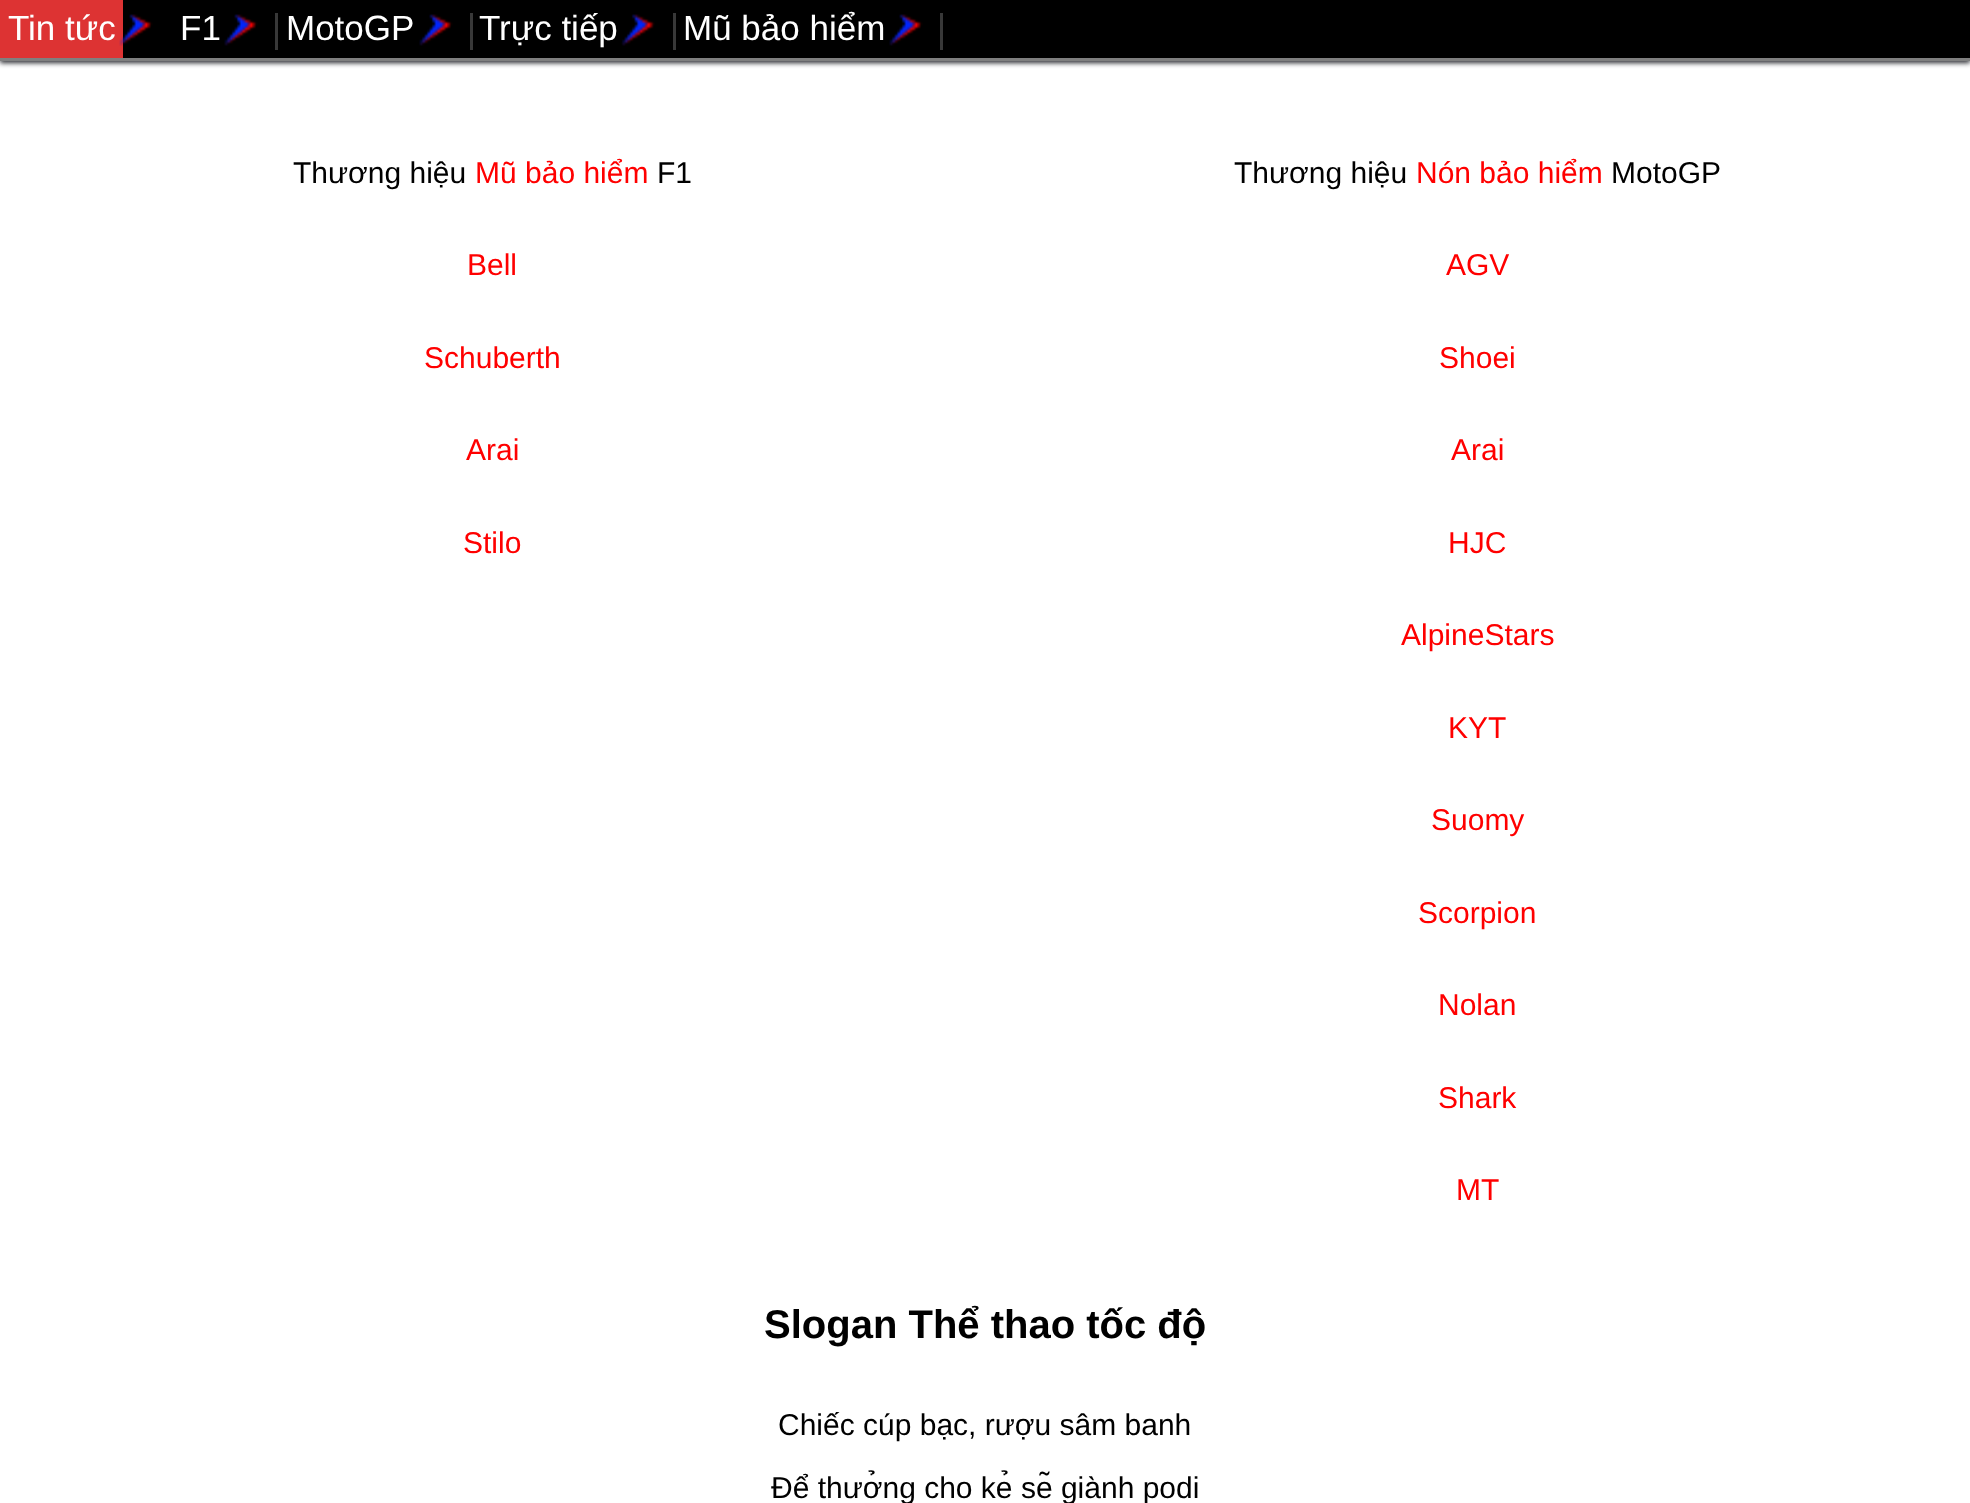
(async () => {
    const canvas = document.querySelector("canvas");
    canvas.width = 1970;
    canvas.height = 1503;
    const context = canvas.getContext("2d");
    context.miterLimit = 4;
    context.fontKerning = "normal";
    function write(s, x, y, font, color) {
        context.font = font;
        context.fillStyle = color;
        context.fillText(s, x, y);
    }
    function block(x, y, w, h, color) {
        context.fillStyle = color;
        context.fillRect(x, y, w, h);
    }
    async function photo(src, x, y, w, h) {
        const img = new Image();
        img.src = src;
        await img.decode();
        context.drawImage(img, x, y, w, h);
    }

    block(0, 0, 1970, 1503, "rgb(255, 255, 255)");
    context.fillStyle = "rgb(41, 42, 48)";
    context.filter = "blur(2.5px)";
    context.beginPath();
    context.rect(0, 3, 1970, 60);
    context.fill();
    context.filter = "none";
    block(123, 0, 1847, 58, "rgb(0, 0, 0)");
    block(0, 58, 1970, 3, "rgb(127, 127, 127)");
    block(0, 0, 123, 58, "rgb(221, 51, 51)");
    write("Tin tức", 8, 40, "35px Liberation Sans", "rgb(255, 255, 255)");
    await photo("media/1.png", 119, 14, 34, 32);
    write("F1", 180, 40, "35px Liberation Sans", "rgb(255, 255, 255)");
    await photo("media/2.png", 224, 14, 34, 32);
    block(275, 13, 3, 37, "rgb(56, 56, 56)");
    write("MotoGP", 286, 40, "35px Liberation Sans", "rgb(255, 255, 255)");
    await photo("media/2.png", 419, 14, 34, 32);
    block(470, 13, 3, 37, "rgb(56, 56, 56)");
    write("Trực tiếp", 479, 40, "35px Liberation Sans", "rgb(255, 255, 255)");
    await photo("media/3.png", 621, 14, 34, 32);
    block(673, 13, 3, 37, "rgb(56, 56, 56)");
    write("Mũ bảo hiểm", 683, 40, "35px Liberation Sans", "rgb(255, 255, 255)");
    await photo("media/2.png", 889, 14, 34, 32);
    block(940, 13, 3, 37, "rgb(56, 56, 56)");
    write("Thương hiệu", 293, 183, "30px Liberation Sans", "rgb(0, 0, 0)");
    write("Mũ bảo hiểm", 475, 183, "30px Liberation Sans", "rgb(255, 0, 0)");
    write("F1", 657, 183, "30px Liberation Sans", "rgb(0, 0, 0)");
    write("Bell", 467, 275, "30px Liberation Sans", "rgb(255, 0, 0)");
    write("Schuberth", 424, 368, "30px Liberation Sans", "rgb(255, 0, 0)");
    write("Arai", 466, 460, "30px Liberation Sans", "rgb(255, 0, 0)");
    write("Stilo", 463, 553, "30px Liberation Sans", "rgb(255, 0, 0)");
    write("Thương hiệu", 1234, 183, "30px Liberation Sans", "rgb(0, 0, 0)");
    write("Nón bảo hiểm", 1416, 183, "30px Liberation Sans", "rgb(255, 0, 0)");
    write("MotoGP", 1611, 183, "30px Liberation Sans", "rgb(0, 0, 0)");
    write("AGV", 1446, 275, "30px Liberation Sans", "rgb(255, 0, 0)");
    write("Shoei", 1439, 368, "30px Liberation Sans", "rgb(255, 0, 0)");
    write("Arai", 1451, 460, "30px Liberation Sans", "rgb(255, 0, 0)");
    write("HJC", 1448, 553, "30px Liberation Sans", "rgb(255, 0, 0)");
    write("AlpineStars", 1401, 645, "30px Liberation Sans", "rgb(255, 0, 0)");
    write("KYT", 1448, 738, "30px Liberation Sans", "rgb(255, 0, 0)");
    write("Suomy", 1431, 830, "30px Liberation Sans", "rgb(255, 0, 0)");
    write("Scorpion", 1418, 923, "30px Liberation Sans", "rgb(255, 0, 0)");
    write("Nolan", 1438, 1015, "30px Liberation Sans", "rgb(255, 0, 0)");
    write("Shark", 1438, 1108, "30px Liberation Sans", "rgb(255, 0, 0)");
    write("MT", 1456, 1200, "30px Liberation Sans", "rgb(255, 0, 0)");
    write("Slogan Thể thao tốc độ", 764, 1338, "bold 40px Liberation Sans", "rgb(0, 0, 0)");
    write("Chiếc cúp bạc, rượu sâm banh", 778, 1435, "30px Liberation Sans", "rgb(0, 0, 0)");
    write("Để thưởng cho kẻ sẽ giành podi", 771, 1498, "30px Liberation Sans", "rgb(0, 0, 0)");
})();
